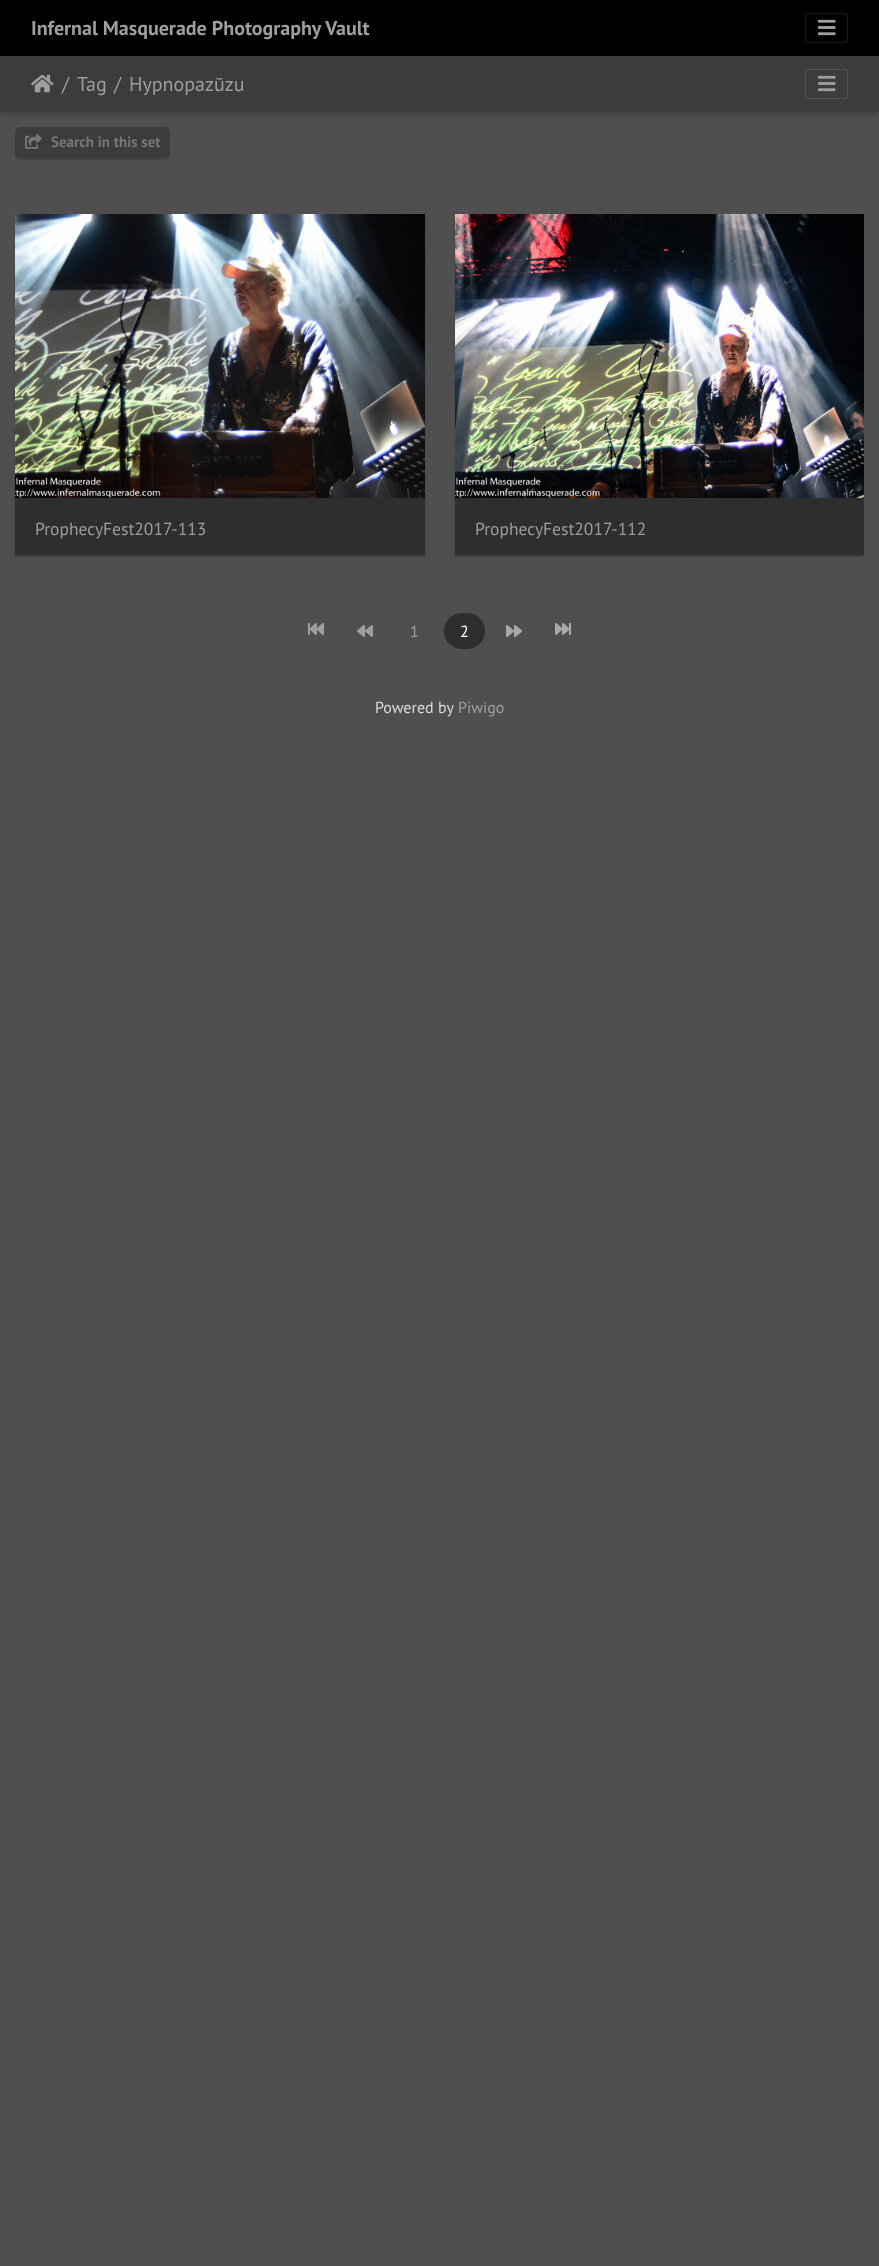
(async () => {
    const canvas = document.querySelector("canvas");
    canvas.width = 879;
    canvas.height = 2266;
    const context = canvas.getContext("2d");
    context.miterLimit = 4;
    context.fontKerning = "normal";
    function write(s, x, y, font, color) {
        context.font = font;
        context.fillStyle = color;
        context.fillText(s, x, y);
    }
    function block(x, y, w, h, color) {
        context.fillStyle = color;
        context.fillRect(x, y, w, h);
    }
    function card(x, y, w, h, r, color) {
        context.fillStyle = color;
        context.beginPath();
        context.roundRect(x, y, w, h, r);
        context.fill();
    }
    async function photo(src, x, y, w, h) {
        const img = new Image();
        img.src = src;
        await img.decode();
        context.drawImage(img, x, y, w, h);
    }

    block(0, 0, 879, 2266, "rgb(79, 79, 79)");
    context.fillStyle = "rgba(0, 0, 0, 0.2)";
    context.filter = "blur(2.5px)";
    context.beginPath();
    context.rect(1, 60, 877, 54);
    context.fill();
    context.filter = "none";
    block(0, 0, 879, 56, "rgb(0, 0, 0)");
    write("Infernal Masquerade Photography Vault", 31, 35, "bold 20px PT Sans", "rgb(158, 158, 158)");
    context.beginPath();
    context.roundRect(805.5, 13.5, 42, 29, 1.5);
    context.strokeStyle = "rgb(26, 26, 26)";
    context.stroke();
    await photo("media/1.png", 818, 19, 18, 17);
    block(0, 56, 879, 56, "rgb(60, 60, 60)");
    await photo("media/2.png", 31, 74, 23, 19);
    write("/", 62, 91, "20px PT Sans", "rgb(158, 158, 158)");
    write("Tag", 77, 91, "20px PT Sans", "rgb(158, 158, 158)");
    write("/", 114, 91, "20px PT Sans", "rgb(158, 158, 158)");
    write("Hypnopazūzu", 129, 91, "20px PT Sans", "rgb(158, 158, 158)");
    context.beginPath();
    context.roundRect(805.5, 69.5, 42, 29, 1.5);
    context.strokeStyle = "rgb(80, 80, 80)";
    context.stroke();
    await photo("media/3.png", 818, 75, 18, 17);
    context.fillStyle = "rgb(68, 68, 68)";
    context.beginPath();
    context.moveTo(15, 153);
    context.lineTo(15, 155);
    context.bezierCurveTo(15, 158, 17, 160, 20, 160);
    context.lineTo(165, 160);
    context.bezierCurveTo(168, 160, 170, 158, 170, 155);
    context.lineTo(170, 153);
    context.bezierCurveTo(170, 156, 168, 158, 165, 158);
    context.lineTo(20, 158);
    context.bezierCurveTo(17, 158, 15, 156, 15, 153);
    context.closePath();
    context.fill();
    card(15, 127, 155, 31, 5, "rgb(60, 60, 60)");
    await photo("media/4.png", 25, 134, 17, 15);
    write("Search in this set", 51, 147, "bold 15px PT Sans", "rgb(119, 119, 119)");
    context.fillStyle = "rgba(0, 0, 0, 0.2)";
    context.filter = "blur(0.5px)";
    context.beginPath();
    context.rect(17, 219, 406, 337);
    context.fill();
    context.filter = "none";
    context.fillStyle = "rgba(0, 0, 0, 0.14)";
    context.filter = "blur(1px)";
    context.beginPath();
    context.roundRect(15, 216, 410, 341, 2);
    context.fill();
    context.filter = "none";
    await photo("media/5.png", 15, 214, 410, 284);
    block(15, 498, 410, 57, "rgb(46, 46, 46)");
    write("ProphecyFest2017-113", 35, 535, "17.5px PT Sans", "rgb(158, 158, 158)");
    context.fillStyle = "rgba(0, 0, 0, 0.2)";
    context.filter = "blur(0.5px)";
    context.beginPath();
    context.rect(457, 219, 405, 337);
    context.fill();
    context.filter = "none";
    context.fillStyle = "rgba(0, 0, 0, 0.14)";
    context.filter = "blur(1px)";
    context.beginPath();
    context.roundRect(455, 216, 409, 341, 2);
    context.fill();
    context.filter = "none";
    await photo("media/6.png", 455, 214, 409, 284);
    block(455, 498, 409, 57, "rgb(46, 46, 46)");
    write("ProphecyFest2017-112", 475, 535, "17.5px PT Sans", "rgb(158, 158, 158)");
    await photo("media/7.png", 308, 623, 16, 12);
    await photo("media/8.png", 357, 625, 16, 12);
    write("1", 410, 637, "16px PT Sans", "rgb(158, 158, 158)");
    card(444, 613, 41, 36, 18, "rgb(46, 46, 46)");
    write("2", 460, 637, "16px PT Sans", "rgb(255, 255, 255)");
    await photo("media/9.png", 506, 625, 16, 12);
    await photo("media/10.png", 555, 623, 16, 12);
    write("Powered by", 375, 713, "16px PT Sans", "rgb(219, 219, 219)");
    write("Piwigo", 458, 713, "16px PT Sans", "rgb(158, 158, 158)");
})();
